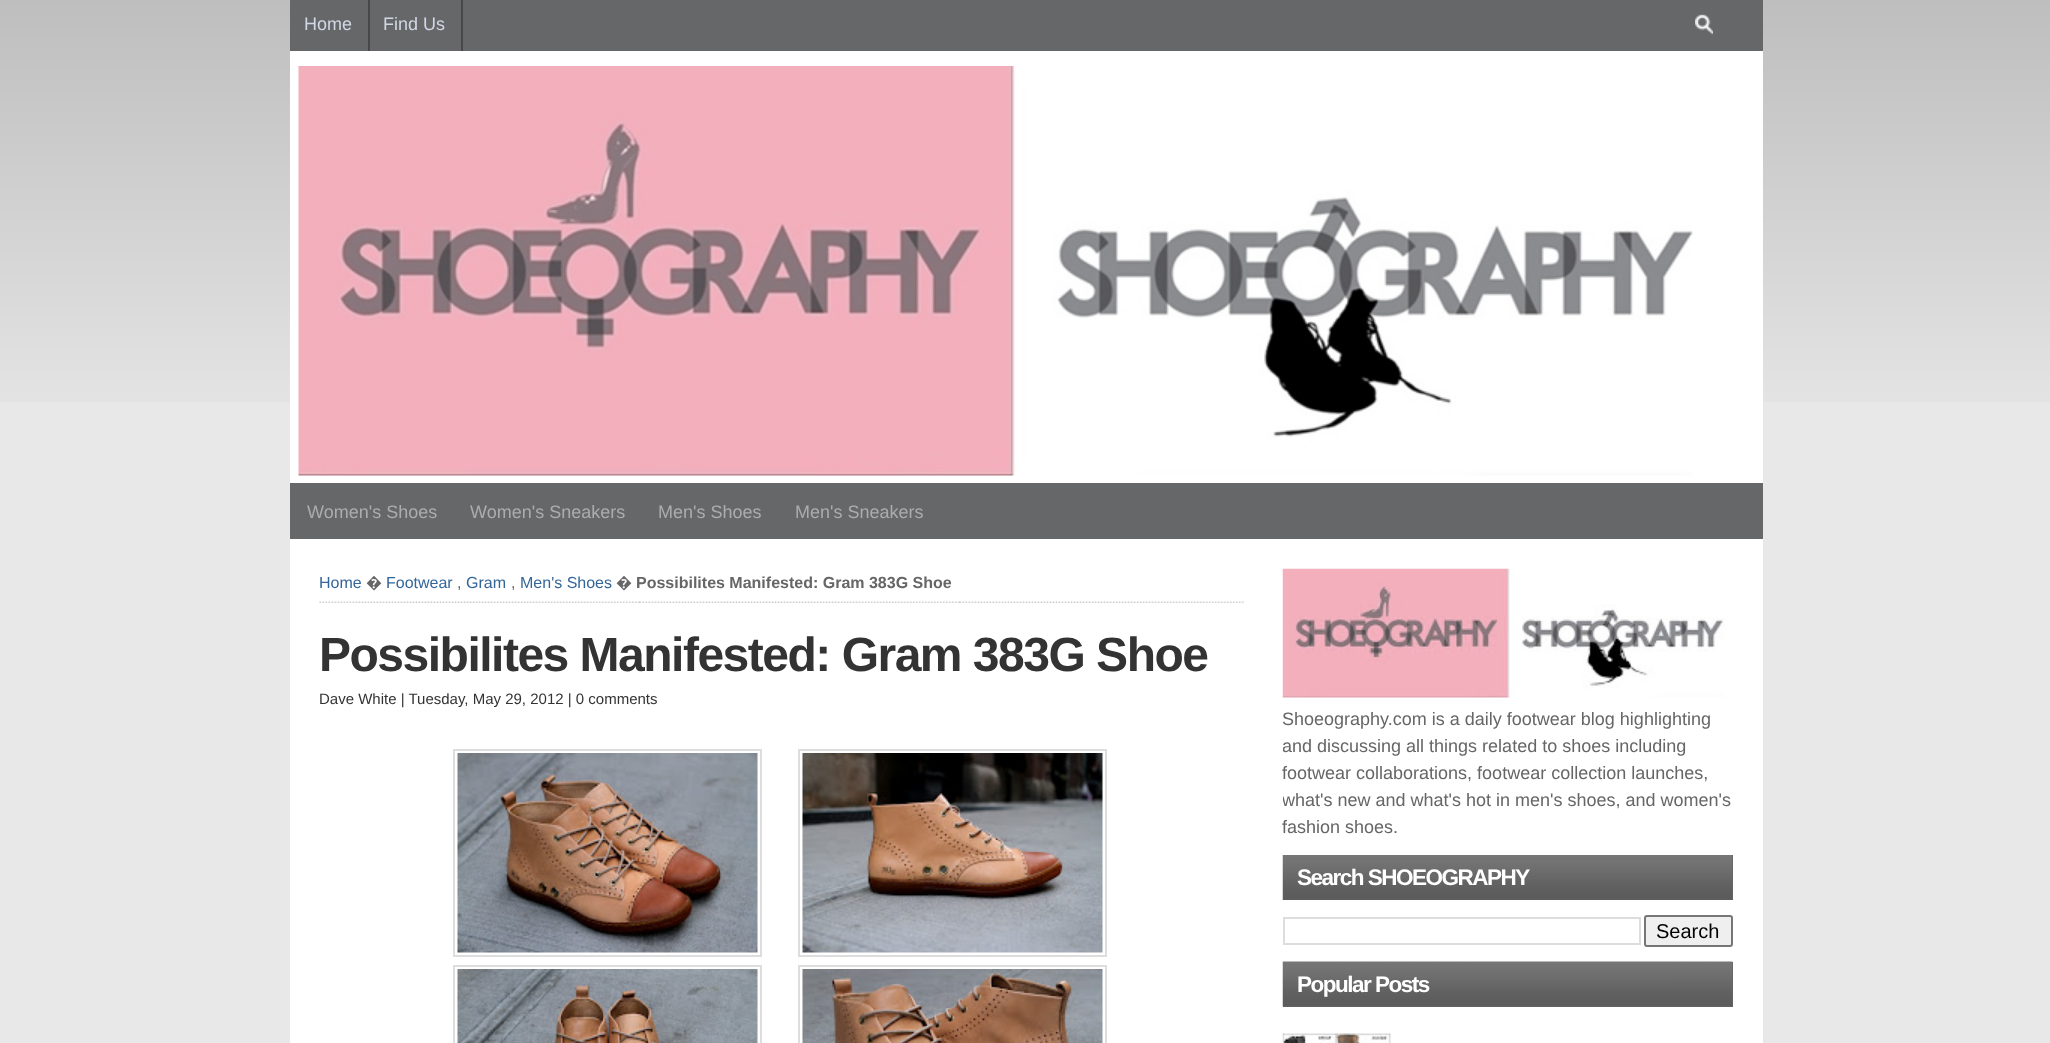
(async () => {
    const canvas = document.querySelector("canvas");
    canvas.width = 2050;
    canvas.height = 1043;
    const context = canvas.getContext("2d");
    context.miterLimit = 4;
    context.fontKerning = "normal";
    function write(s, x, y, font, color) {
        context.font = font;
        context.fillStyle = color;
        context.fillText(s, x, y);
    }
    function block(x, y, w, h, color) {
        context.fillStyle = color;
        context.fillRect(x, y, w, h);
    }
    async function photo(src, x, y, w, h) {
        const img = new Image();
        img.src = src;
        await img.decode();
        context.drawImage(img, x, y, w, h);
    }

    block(0, 0, 2050, 1043, "rgb(232, 232, 232)");
    await photo("media/1.png", 0, 0, 2050, 402);
    block(290, 51, 1473, 432, "rgb(255, 255, 255)");
    block(290, 0, 1473, 51, "rgb(101, 103, 105)");
    block(368, 0, 2, 51, "rgb(72, 72, 74)");
    write("Home", 304, 30, "18px Liberation Sans", "rgb(209, 216, 229)");
    block(461, 0, 2, 51, "rgb(72, 72, 74)");
    write("Find Us", 383, 30, "18px Liberation Sans", "rgb(209, 216, 229)");
    await photo("media/2.png", 1695, 14, 18, 21);
    await photo("media/3.png", 298, 66, 1395, 410);
    block(290, 483, 1473, 56, "rgb(101, 103, 105)");
    write("Women's Shoes", 307, 518, "18px Liberation Sans", "rgb(172, 172, 173)");
    write("Women's Sneakers", 470, 518, "18px Liberation Sans", "rgb(172, 172, 173)");
    write("Men's Shoes", 658, 518, "18px Liberation Sans", "rgb(172, 172, 173)");
    write("Men's Sneakers", 795, 518, "18px Liberation Sans", "rgb(172, 172, 173)");
    block(290, 539, 1473, 504, "rgb(255, 255, 255)");
    await photo("media/4.png", 319, 601, 925, 2);
    write("Home", 319, 588, "16px Liberation Sans", "rgb(51, 102, 153)");
    write("�", 366, 588, "16px Noto Sans", "rgb(102, 102, 102)");
    write("Footwear", 386, 588, "16px Liberation Sans", "rgb(51, 102, 153)");
    write(",", 457, 588, "16px Liberation Sans", "rgb(102, 102, 102)");
    write("Gram", 466, 588, "16px Liberation Sans", "rgb(51, 102, 153)");
    write(",", 511, 588, "16px Liberation Sans", "rgb(102, 102, 102)");
    write("Men's Shoes", 520, 588, "16px Liberation Sans", "rgb(51, 102, 153)");
    write("�", 616, 588, "16px Noto Sans", "rgb(102, 102, 102)");
    write("Possibilites Manifested: Gram 383G Shoe", 636, 588, "bold 16px Liberation Sans", "rgb(102, 102, 102)");
    context.letterSpacing = "-1.5px";
    write("Possibilites Manifested: Gram 383G Shoe", 319, 671, "bold 48px Liberation Sans", "rgb(51, 51, 51)");
    context.letterSpacing = "0px";
    write("Dave White | Tuesday, May 29, 2012 | 0 comments", 319, 704, "15px Liberation Sans", "rgb(51, 51, 51)");
    context.strokeStyle = "rgb(221, 221, 221)";
    context.lineWidth = 2;
    context.strokeRect(454, 750, 307, 206);
    context.strokeRect(799, 750, 307, 206);
    await photo("media/5.png", 457, 753, 301, 200);
    await photo("media/6.png", 802, 753, 301, 200);
    context.strokeRect(454, 966, 307, 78);
    context.strokeRect(799, 966, 307, 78);
    await photo("media/7.png", 457, 969, 301, 74);
    await photo("media/8.png", 802, 969, 301, 74);
    await photo("media/9.png", 1282, 568, 443, 130);
    write("Shoeography.com is a daily footwear blog highlighting", 1282, 725, "18px Liberation Sans", "rgb(102, 102, 102)");
    context.save();
    context.beginPath();
    context.rect(1283, 569, 450, 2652);
    context.clip();
    write("and discussing all things related to shoes including", 1282, 752, "18px Liberation Sans", "rgb(102, 102, 102)");
    context.restore();
    write("footwear collaborations, footwear collection launches,", 1282, 779, "18px Liberation Sans", "rgb(102, 102, 102)");
    context.save();
    context.beginPath();
    context.rect(1283, 569, 450, 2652);
    context.clip();
    write("what's new and what's hot in men's shoes, and women's", 1282, 806, "18px Liberation Sans", "rgb(102, 102, 102)");
    context.restore();
    write("fashion shoes.", 1282, 833, "18px Liberation Sans", "rgb(102, 102, 102)");
    block(1732, 855, 1, 45, "rgb(102, 102, 102)");
    await photo("media/10.png", 1282, 855, 451, 45);
    context.letterSpacing = "-1.5px";
    write("Search SHOEOGRAPHY", 1297, 885, "bold 22.5px Liberation Sans", "rgb(255, 255, 255)");
    context.strokeRect(1284, 918, 356, 26);
    context.fillStyle = "rgb(239, 239, 239)";
    context.beginPath();
    context.roundRect(1645, 916, 87, 30, 2);
    context.fill();
    context.strokeStyle = "rgb(118, 118, 118)";
    context.stroke();
    context.letterSpacing = "0px";
    write("Search", 1656, 938, "20px Liberation Sans", "rgb(0, 0, 0)");
    block(1283, 962, 450, 45, "rgb(102, 102, 102)");
    await photo("media/11.png", 1282, 961, 451, 46);
    context.letterSpacing = "-1.5px";
    write("Popular Posts", 1297, 992, "bold 22.5px Liberation Sans", "rgb(255, 255, 255)");
    await photo("media/12.png", 1282, 1033, 109, 10);
})();
